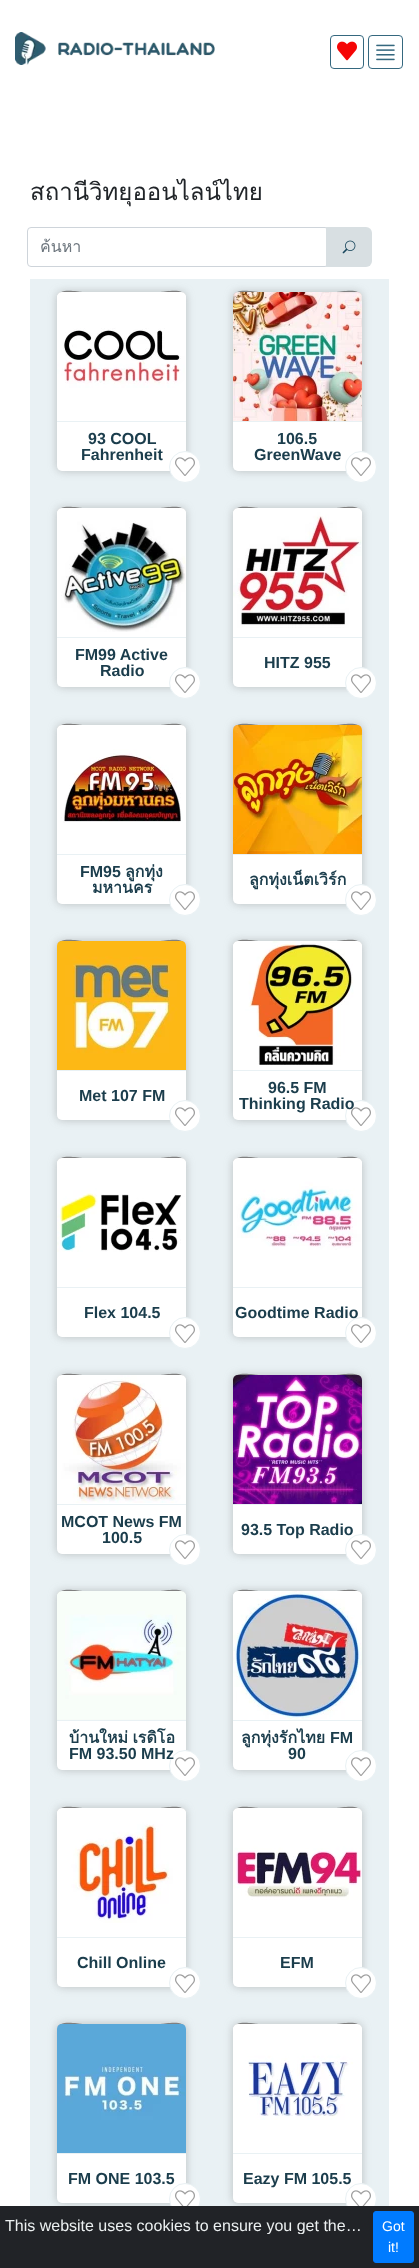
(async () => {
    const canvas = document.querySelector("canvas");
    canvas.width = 419;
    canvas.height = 2268;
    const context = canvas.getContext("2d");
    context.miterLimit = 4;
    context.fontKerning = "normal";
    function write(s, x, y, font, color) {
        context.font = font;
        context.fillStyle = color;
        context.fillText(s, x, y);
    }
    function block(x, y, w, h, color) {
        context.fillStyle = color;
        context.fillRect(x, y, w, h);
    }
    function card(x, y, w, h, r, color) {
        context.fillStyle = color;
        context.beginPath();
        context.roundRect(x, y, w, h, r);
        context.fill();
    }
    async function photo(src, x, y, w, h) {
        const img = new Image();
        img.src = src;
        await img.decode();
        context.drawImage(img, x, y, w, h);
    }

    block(0, 0, 419, 2268, "rgb(255, 255, 255)");
    await photo("media/1.png", 15, 32, 200, 33);
    context.beginPath();
    context.roundRect(330.5, 35.5, 33, 33, 3.5);
    context.strokeStyle = "rgb(53, 104, 127)";
    context.stroke();
    await photo("media/2.png", 337, 41, 20, 20);
    context.beginPath();
    context.roundRect(368.5, 35.5, 34, 33, 3.5);
    context.stroke();
    await photo("media/3.png", 376, 44, 19, 17);
    write("สถานีวิทยุออนไลน์ไทย", 30, 200, "24px Loma", "rgb(33, 37, 41)");
    context.beginPath();
    context.roundRect(27.5, 227.5, 301, 39, 3.5);
    context.strokeStyle = "rgb(206, 212, 218)";
    context.stroke();
    context.save();
    context.beginPath();
    context.rect(40, 234, 261, 25);
    context.clip();
    write("ค้นหา", 40, 252, "16px Loma", "rgb(108, 117, 125)");
    context.restore();
    context.fillStyle = "rgb(216, 223, 226)";
    context.beginPath();
    context.roundRect(326, 227, 46, 40, [0, 6, 6, 0]);
    context.fill();
    await photo("media/4.png", 342, 240, 14, 14);
    block(30, 279, 359, 1927, "rgb(233, 241, 244)");
    context.fillStyle = "rgba(128, 128, 128, 0.45)";
    context.filter = "blur(4px)";
    context.beginPath();
    context.roundRect(57, 292, 129, 179, 5);
    context.fill();
    context.filter = "none";
    card(57, 292, 129, 179, 5, "rgb(255, 255, 255)");
    context.fillStyle = "rgb(128, 128, 128)";
    context.beginPath();
    context.moveTo(62, 293);
    context.lineTo(181, 293);
    context.bezierCurveTo(184, 293, 186, 295, 186, 298);
    context.bezierCurveTo(186, 287, 165, 292, 161, 292);
    context.lineTo(82, 292);
    context.bezierCurveTo(78, 292, 57, 287, 57, 298);
    context.bezierCurveTo(57, 295, 59, 293, 62, 293);
    context.closePath();
    context.fill();
    await photo("media/5.png", 57, 292, 129, 96);
    block(57, 421, 129, 1, "rgb(233, 241, 244)");
    write("93 COOL", 88, 444, "bold 16px Liberation Sans", "rgb(27, 61, 76)");
    write("Fahrenheit", 81, 460, "bold 16px Liberation Sans", "rgb(27, 61, 76)");
    context.fillStyle = "rgb(255, 255, 255)";
    context.beginPath();
    context.arc(185, 467, 15.5, 0, Math.PI * 2);
    context.fill();
    context.strokeStyle = "rgb(233, 241, 244)";
    context.stroke();
    await photo("media/6.png", 175, 457, 20, 19);
    context.fillStyle = "rgba(128, 128, 128, 0.45)";
    context.filter = "blur(4px)";
    context.beginPath();
    context.roundRect(233, 292, 129, 179, 5);
    context.fill();
    context.filter = "none";
    card(233, 292, 129, 179, 5, "rgb(255, 255, 255)");
    context.fillStyle = "rgb(128, 128, 128)";
    context.beginPath();
    context.moveTo(238, 293);
    context.lineTo(357, 293);
    context.bezierCurveTo(360, 293, 362, 295, 362, 298);
    context.bezierCurveTo(362, 287, 341, 292, 337, 292);
    context.lineTo(258, 292);
    context.bezierCurveTo(254, 292, 233, 287, 233, 298);
    context.bezierCurveTo(233, 295, 235, 293, 238, 293);
    context.closePath();
    context.fill();
    await photo("media/7.png", 233, 292, 129, 129);
    block(233, 421, 129, 1, "rgb(233, 241, 244)");
    write("106.5", 277, 444, "bold 16px Liberation Sans", "rgb(27, 61, 76)");
    write("GreenWave", 254, 460, "bold 16px Liberation Sans", "rgb(27, 61, 76)");
    context.fillStyle = "rgb(255, 255, 255)";
    context.beginPath();
    context.arc(361, 467, 15.5, 0, Math.PI * 2);
    context.fill();
    context.stroke();
    await photo("media/6.png", 351, 457, 20, 19);
    context.fillStyle = "rgba(128, 128, 128, 0.45)";
    context.filter = "blur(4px)";
    context.beginPath();
    context.roundRect(57, 508, 129, 179, 5);
    context.fill();
    context.filter = "none";
    card(57, 508, 129, 179, 5, "rgb(255, 255, 255)");
    context.fillStyle = "rgb(128, 128, 128)";
    context.beginPath();
    context.moveTo(62, 509);
    context.lineTo(181, 509);
    context.bezierCurveTo(184, 509, 186, 511, 186, 514);
    context.bezierCurveTo(186, 503, 165, 508, 161, 508);
    context.lineTo(82, 508);
    context.bezierCurveTo(78, 508, 57, 503, 57, 514);
    context.bezierCurveTo(57, 511, 59, 509, 62, 509);
    context.closePath();
    context.fill();
    await photo("media/8.png", 57, 508, 129, 124);
    block(57, 637, 129, 1, "rgb(233, 241, 244)");
    write("FM99 Active", 75, 660, "bold 16px Liberation Sans", "rgb(27, 61, 76)");
    write("Radio", 100, 676, "bold 16px Liberation Sans", "rgb(27, 61, 76)");
    context.fillStyle = "rgb(255, 255, 255)";
    context.beginPath();
    context.arc(185, 683, 15.5, 0, Math.PI * 2);
    context.fill();
    context.stroke();
    await photo("media/6.png", 175, 674, 20, 19);
    context.fillStyle = "rgba(128, 128, 128, 0.45)";
    context.filter = "blur(4px)";
    context.beginPath();
    context.roundRect(233, 508, 129, 179, 5);
    context.fill();
    context.filter = "none";
    card(233, 508, 129, 179, 5, "rgb(255, 255, 255)");
    context.fillStyle = "rgb(128, 128, 128)";
    context.beginPath();
    context.moveTo(238, 509);
    context.lineTo(357, 509);
    context.bezierCurveTo(360, 509, 362, 511, 362, 514);
    context.bezierCurveTo(362, 503, 341, 508, 337, 508);
    context.lineTo(258, 508);
    context.bezierCurveTo(254, 508, 233, 503, 233, 514);
    context.bezierCurveTo(233, 511, 235, 509, 238, 509);
    context.closePath();
    context.fill();
    await photo("media/9.png", 233, 508, 129, 120);
    block(233, 637, 129, 1, "rgb(233, 241, 244)");
    write("HITZ 955", 264, 668, "bold 16px Liberation Sans", "rgb(27, 61, 76)");
    context.fillStyle = "rgb(255, 255, 255)";
    context.beginPath();
    context.arc(361, 683, 15.5, 0, Math.PI * 2);
    context.fill();
    context.stroke();
    await photo("media/6.png", 351, 674, 20, 19);
    context.fillStyle = "rgba(128, 128, 128, 0.45)";
    context.filter = "blur(4px)";
    context.beginPath();
    context.roundRect(57, 725, 129, 179, 5);
    context.fill();
    context.filter = "none";
    card(57, 725, 129, 179, 5, "rgb(255, 255, 255)");
    context.fillStyle = "rgb(128, 128, 128)";
    context.beginPath();
    context.moveTo(62, 726);
    context.lineTo(181, 726);
    context.bezierCurveTo(184, 726, 186, 728, 186, 731);
    context.bezierCurveTo(186, 720, 165, 725, 161, 725);
    context.lineTo(82, 725);
    context.bezierCurveTo(78, 725, 57, 720, 57, 731);
    context.bezierCurveTo(57, 728, 59, 726, 62, 726);
    context.closePath();
    context.fill();
    await photo("media/10.png", 57, 725, 129, 98);
    block(57, 854, 129, 1, "rgb(233, 241, 244)");
    write("FM95", 80, 877, "bold 16px Liberation Sans", "rgb(27, 61, 76)");
    write("ลูกทุ่ง", 125, 877, "bold 16px Loma", "rgb(27, 61, 76)");
    write("มหานคร", 92, 893, "bold 16px Loma", "rgb(27, 61, 76)");
    context.fillStyle = "rgb(255, 255, 255)";
    context.beginPath();
    context.arc(185, 900, 15.5, 0, Math.PI * 2);
    context.fill();
    context.stroke();
    await photo("media/6.png", 175, 891, 20, 19);
    context.fillStyle = "rgba(128, 128, 128, 0.45)";
    context.filter = "blur(4px)";
    context.beginPath();
    context.roundRect(233, 725, 129, 179, 5);
    context.fill();
    context.filter = "none";
    card(233, 725, 129, 179, 5, "rgb(255, 255, 255)");
    context.fillStyle = "rgb(128, 128, 128)";
    context.beginPath();
    context.moveTo(238, 726);
    context.lineTo(357, 726);
    context.bezierCurveTo(360, 726, 362, 728, 362, 731);
    context.bezierCurveTo(362, 720, 341, 725, 337, 725);
    context.lineTo(258, 725);
    context.bezierCurveTo(254, 725, 233, 720, 233, 731);
    context.bezierCurveTo(233, 728, 235, 726, 238, 726);
    context.closePath();
    context.fill();
    await photo("media/11.png", 233, 725, 129, 129);
    block(233, 854, 129, 1, "rgb(233, 241, 244)");
    context.save();
    context.beginPath();
    context.roundRect(249, 855, 97, 50, [0, 0, 5, 5]);
    context.clip();
    write("ลูกทุ่งเน็ตเวิร์ก", 249, 885, "bold 16px Loma", "rgb(27, 61, 76)");
    context.restore();
    context.fillStyle = "rgb(255, 255, 255)";
    context.beginPath();
    context.arc(361, 900, 15.5, 0, Math.PI * 2);
    context.fill();
    context.stroke();
    await photo("media/6.png", 351, 891, 20, 19);
    context.fillStyle = "rgba(128, 128, 128, 0.45)";
    context.filter = "blur(4px)";
    context.beginPath();
    context.roundRect(57, 941, 129, 179, 5);
    context.fill();
    context.filter = "none";
    card(57, 941, 129, 179, 5, "rgb(255, 255, 255)");
    context.fillStyle = "rgb(128, 128, 128)";
    context.beginPath();
    context.moveTo(62, 942);
    context.lineTo(181, 942);
    context.bezierCurveTo(184, 942, 186, 944, 186, 947);
    context.bezierCurveTo(186, 936, 165, 941, 161, 941);
    context.lineTo(82, 941);
    context.bezierCurveTo(78, 941, 57, 936, 57, 947);
    context.bezierCurveTo(57, 944, 59, 942, 62, 942);
    context.closePath();
    context.fill();
    await photo("media/12.png", 57, 941, 129, 129);
    block(57, 1070, 129, 1, "rgb(233, 241, 244)");
    write("Met 107 FM", 79, 1101, "bold 16px Liberation Sans", "rgb(27, 61, 76)");
    context.fillStyle = "rgb(255, 255, 255)";
    context.beginPath();
    context.arc(185, 1116, 15.5, 0, Math.PI * 2);
    context.fill();
    context.stroke();
    await photo("media/6.png", 175, 1107, 20, 19);
    context.fillStyle = "rgba(128, 128, 128, 0.45)";
    context.filter = "blur(4px)";
    context.beginPath();
    context.roundRect(233, 941, 129, 179, 5);
    context.fill();
    context.filter = "none";
    card(233, 941, 129, 179, 5, "rgb(255, 255, 255)");
    context.fillStyle = "rgb(128, 128, 128)";
    context.beginPath();
    context.moveTo(238, 942);
    context.lineTo(357, 942);
    context.bezierCurveTo(360, 942, 362, 944, 362, 947);
    context.bezierCurveTo(362, 936, 341, 941, 337, 941);
    context.lineTo(258, 941);
    context.bezierCurveTo(254, 941, 233, 936, 233, 947);
    context.bezierCurveTo(233, 944, 235, 942, 238, 942);
    context.closePath();
    context.fill();
    await photo("media/13.png", 233, 941, 129, 124);
    block(233, 1070, 129, 1, "rgb(233, 241, 244)");
    write("96.5 FM", 268, 1093, "bold 16px Liberation Sans", "rgb(27, 61, 76)");
    context.fillStyle = "rgb(255, 255, 255)";
    context.beginPath();
    context.arc(361, 1116, 15.5, 0, Math.PI * 2);
    context.fill();
    context.stroke();
    write("Thinking Radio", 239, 1109, "bold 16px Liberation Sans", "rgb(27, 61, 76)");
    await photo("media/14.png", 351, 1107, 20, 19);
    context.fillStyle = "rgba(128, 128, 128, 0.45)";
    context.filter = "blur(4px)";
    context.beginPath();
    context.roundRect(57, 1158, 129, 179, 5);
    context.fill();
    context.filter = "none";
    card(57, 1158, 129, 179, 5, "rgb(255, 255, 255)");
    context.fillStyle = "rgb(128, 128, 128)";
    context.beginPath();
    context.moveTo(62, 1159);
    context.lineTo(181, 1159);
    context.bezierCurveTo(184, 1159, 186, 1161, 186, 1164);
    context.bezierCurveTo(186, 1153, 165, 1158, 161, 1158);
    context.lineTo(82, 1158);
    context.bezierCurveTo(78, 1158, 57, 1153, 57, 1164);
    context.bezierCurveTo(57, 1161, 59, 1159, 62, 1159);
    context.closePath();
    context.fill();
    await photo("media/15.png", 57, 1158, 129, 94);
    block(57, 1287, 129, 1, "rgb(233, 241, 244)");
    write("Flex 104.5", 84, 1318, "bold 16px Liberation Sans", "rgb(27, 61, 76)");
    context.fillStyle = "rgb(255, 255, 255)";
    context.beginPath();
    context.arc(185, 1333, 15.5, 0, Math.PI * 2);
    context.fill();
    context.stroke();
    await photo("media/6.png", 175, 1324, 20, 19);
    context.fillStyle = "rgba(128, 128, 128, 0.45)";
    context.filter = "blur(4px)";
    context.beginPath();
    context.roundRect(233, 1158, 129, 179, 5);
    context.fill();
    context.filter = "none";
    card(233, 1158, 129, 179, 5, "rgb(255, 255, 255)");
    context.fillStyle = "rgb(128, 128, 128)";
    context.beginPath();
    context.moveTo(238, 1159);
    context.lineTo(357, 1159);
    context.bezierCurveTo(360, 1159, 362, 1161, 362, 1164);
    context.bezierCurveTo(362, 1153, 341, 1158, 337, 1158);
    context.lineTo(258, 1158);
    context.bezierCurveTo(254, 1158, 233, 1153, 233, 1164);
    context.bezierCurveTo(233, 1161, 235, 1159, 238, 1159);
    context.closePath();
    context.fill();
    await photo("media/16.png", 233, 1158, 129, 92);
    block(233, 1287, 129, 1, "rgb(233, 241, 244)");
    context.fillStyle = "rgb(255, 255, 255)";
    context.beginPath();
    context.arc(361, 1333, 15.5, 0, Math.PI * 2);
    context.fill();
    context.stroke();
    write("Goodtime Radio", 235, 1318, "bold 16px Liberation Sans", "rgb(27, 61, 76)");
    await photo("media/6.png", 351, 1324, 20, 19);
    context.fillStyle = "rgba(128, 128, 128, 0.45)";
    context.filter = "blur(4px)";
    context.beginPath();
    context.roundRect(57, 1375, 129, 179, 5);
    context.fill();
    context.filter = "none";
    card(57, 1375, 129, 179, 5, "rgb(255, 255, 255)");
    context.fillStyle = "rgb(128, 128, 128)";
    context.beginPath();
    context.moveTo(62, 1376);
    context.lineTo(181, 1376);
    context.bezierCurveTo(184, 1376, 186, 1378, 186, 1381);
    context.bezierCurveTo(186, 1370, 165, 1375, 161, 1375);
    context.lineTo(82, 1375);
    context.bezierCurveTo(78, 1375, 57, 1370, 57, 1381);
    context.bezierCurveTo(57, 1378, 59, 1376, 62, 1376);
    context.closePath();
    context.fill();
    await photo("media/17.png", 57, 1375, 129, 128);
    block(57, 1504, 129, 1, "rgb(233, 241, 244)");
    write("MCOT News FM", 61, 1527, "bold 16px Liberation Sans", "rgb(27, 61, 76)");
    write("100.5", 102, 1543, "bold 16px Liberation Sans", "rgb(27, 61, 76)");
    context.fillStyle = "rgb(255, 255, 255)";
    context.beginPath();
    context.arc(185, 1550, 15.5, 0, Math.PI * 2);
    context.fill();
    context.stroke();
    await photo("media/6.png", 175, 1540, 20, 19);
    context.fillStyle = "rgba(128, 128, 128, 0.45)";
    context.filter = "blur(4px)";
    context.beginPath();
    context.roundRect(233, 1375, 129, 179, 5);
    context.fill();
    context.filter = "none";
    card(233, 1375, 129, 179, 5, "rgb(255, 255, 255)");
    context.fillStyle = "rgb(128, 128, 128)";
    context.beginPath();
    context.moveTo(238, 1376);
    context.lineTo(357, 1376);
    context.bezierCurveTo(360, 1376, 362, 1378, 362, 1381);
    context.bezierCurveTo(362, 1370, 341, 1375, 337, 1375);
    context.lineTo(258, 1375);
    context.bezierCurveTo(254, 1375, 233, 1370, 233, 1381);
    context.bezierCurveTo(233, 1378, 235, 1376, 238, 1376);
    context.closePath();
    context.fill();
    await photo("media/18.png", 233, 1375, 129, 129);
    block(233, 1504, 129, 1, "rgb(233, 241, 244)");
    context.fillStyle = "rgb(255, 255, 255)";
    context.beginPath();
    context.arc(361, 1550, 15.5, 0, Math.PI * 2);
    context.fill();
    context.stroke();
    write("93.5 Top Radio", 241, 1535, "bold 16px Liberation Sans", "rgb(27, 61, 76)");
    await photo("media/6.png", 351, 1540, 20, 19);
    context.fillStyle = "rgba(128, 128, 128, 0.45)";
    context.filter = "blur(4px)";
    context.beginPath();
    context.roundRect(57, 1591, 129, 179, 5);
    context.fill();
    context.filter = "none";
    card(57, 1591, 129, 179, 5, "rgb(255, 255, 255)");
    context.fillStyle = "rgb(128, 128, 128)";
    context.beginPath();
    context.moveTo(62, 1592);
    context.lineTo(181, 1592);
    context.bezierCurveTo(184, 1592, 186, 1594, 186, 1597);
    context.bezierCurveTo(186, 1586, 165, 1591, 161, 1591);
    context.lineTo(82, 1591);
    context.bezierCurveTo(78, 1591, 57, 1586, 57, 1597);
    context.bezierCurveTo(57, 1594, 59, 1592, 62, 1592);
    context.closePath();
    context.fill();
    await photo("media/19.png", 57, 1591, 129, 129);
    block(57, 1720, 129, 1, "rgb(233, 241, 244)");
    context.wordSpacing = "-1px";
    write("บ้านใหม่ เรดิโอ", 69, 1743, "bold 16px Loma", "rgb(27, 61, 76)");
    context.fillStyle = "rgb(255, 255, 255)";
    context.beginPath();
    context.arc(185, 1766, 15.5, 0, Math.PI * 2);
    context.fill();
    context.stroke();
    context.wordSpacing = "0px";
    write("FM 93.50 MHz", 69, 1759, "bold 16px Liberation Sans", "rgb(27, 61, 76)");
    await photo("media/6.png", 175, 1757, 20, 19);
    context.fillStyle = "rgba(128, 128, 128, 0.45)";
    context.filter = "blur(4px)";
    context.beginPath();
    context.roundRect(233, 1591, 129, 179, 5);
    context.fill();
    context.filter = "none";
    card(233, 1591, 129, 179, 5, "rgb(255, 255, 255)");
    context.fillStyle = "rgb(128, 128, 128)";
    context.beginPath();
    context.moveTo(238, 1592);
    context.lineTo(357, 1592);
    context.bezierCurveTo(360, 1592, 362, 1594, 362, 1597);
    context.bezierCurveTo(362, 1586, 341, 1591, 337, 1591);
    context.lineTo(258, 1591);
    context.bezierCurveTo(254, 1591, 233, 1586, 233, 1597);
    context.bezierCurveTo(233, 1594, 235, 1592, 238, 1592);
    context.closePath();
    context.fill();
    await photo("media/20.png", 233, 1591, 129, 129);
    block(233, 1720, 129, 1, "rgb(233, 241, 244)");
    write("ลูกทุ่งรักไทย", 241, 1743, "bold 16px Loma", "rgb(27, 61, 76)");
    write("FM", 330, 1743, "bold 16px Liberation Sans", "rgb(27, 61, 76)");
    write("90", 288, 1759, "bold 16px Liberation Sans", "rgb(27, 61, 76)");
    context.fillStyle = "rgb(255, 255, 255)";
    context.beginPath();
    context.arc(361, 1766, 15.5, 0, Math.PI * 2);
    context.fill();
    context.stroke();
    await photo("media/6.png", 351, 1757, 20, 19);
    context.fillStyle = "rgba(128, 128, 128, 0.45)";
    context.filter = "blur(4px)";
    context.beginPath();
    context.roundRect(57, 1808, 129, 179, 5);
    context.fill();
    context.filter = "none";
    card(57, 1808, 129, 179, 5, "rgb(255, 255, 255)");
    context.fillStyle = "rgb(128, 128, 128)";
    context.beginPath();
    context.moveTo(62, 1809);
    context.lineTo(181, 1809);
    context.bezierCurveTo(184, 1809, 186, 1811, 186, 1814);
    context.bezierCurveTo(186, 1803, 165, 1808, 161, 1808);
    context.lineTo(82, 1808);
    context.bezierCurveTo(78, 1808, 57, 1803, 57, 1814);
    context.bezierCurveTo(57, 1811, 59, 1809, 62, 1809);
    context.closePath();
    context.fill();
    await photo("media/21.png", 57, 1808, 129, 115);
    block(57, 1937, 129, 1, "rgb(233, 241, 244)");
    write("Chill Online", 77, 1968, "bold 16px Liberation Sans", "rgb(27, 61, 76)");
    context.fillStyle = "rgb(255, 255, 255)";
    context.beginPath();
    context.arc(185, 1983, 15.5, 0, Math.PI * 2);
    context.fill();
    context.stroke();
    await photo("media/6.png", 175, 1974, 20, 19);
    context.fillStyle = "rgba(128, 128, 128, 0.45)";
    context.filter = "blur(4px)";
    context.beginPath();
    context.roundRect(233, 1808, 129, 179, 5);
    context.fill();
    context.filter = "none";
    card(233, 1808, 129, 179, 5, "rgb(255, 255, 255)");
    context.fillStyle = "rgb(128, 128, 128)";
    context.beginPath();
    context.moveTo(238, 1809);
    context.lineTo(357, 1809);
    context.bezierCurveTo(360, 1809, 362, 1811, 362, 1814);
    context.bezierCurveTo(362, 1803, 341, 1808, 337, 1808);
    context.lineTo(258, 1808);
    context.bezierCurveTo(254, 1808, 233, 1803, 233, 1814);
    context.bezierCurveTo(233, 1811, 235, 1809, 238, 1809);
    context.closePath();
    context.fill();
    await photo("media/22.png", 233, 1808, 129, 92);
    block(233, 1937, 129, 1, "rgb(233, 241, 244)");
    write("EFM", 280, 1968, "bold 16px Liberation Sans", "rgb(27, 61, 76)");
    context.fillStyle = "rgb(255, 255, 255)";
    context.beginPath();
    context.arc(361, 1983, 15.5, 0, Math.PI * 2);
    context.fill();
    context.stroke();
    await photo("media/6.png", 351, 1974, 20, 19);
    context.fillStyle = "rgba(128, 128, 128, 0.45)";
    context.filter = "blur(4px)";
    context.beginPath();
    context.roundRect(57, 2024, 129, 179, 5);
    context.fill();
    context.filter = "none";
    card(57, 2024, 129, 179, 5, "rgb(255, 255, 255)");
    context.fillStyle = "rgb(128, 128, 128)";
    context.beginPath();
    context.moveTo(62, 2025);
    context.lineTo(181, 2025);
    context.bezierCurveTo(184, 2025, 186, 2027, 186, 2030);
    context.bezierCurveTo(186, 2019, 165, 2024, 161, 2024);
    context.lineTo(82, 2024);
    context.bezierCurveTo(78, 2024, 57, 2019, 57, 2030);
    context.bezierCurveTo(57, 2027, 59, 2025, 62, 2025);
    context.closePath();
    context.fill();
    await photo("media/23.png", 57, 2024, 129, 129);
    block(57, 2153, 129, 1, "rgb(233, 241, 244)");
    context.fillStyle = "rgb(255, 255, 255)";
    context.beginPath();
    context.arc(185, 2199, 15.5, 0, Math.PI * 2);
    context.fill();
    context.stroke();
    write("FM ONE 103.5", 68, 2184, "bold 16px Liberation Sans", "rgb(27, 61, 76)");
    await photo("media/24.png", 175, 2190, 20, 16);
    context.fillStyle = "rgba(128, 128, 128, 0.45)";
    context.filter = "blur(4px)";
    context.beginPath();
    context.roundRect(233, 2024, 129, 179, 5);
    context.fill();
    context.filter = "none";
    card(233, 2024, 129, 179, 5, "rgb(255, 255, 255)");
    context.fillStyle = "rgb(128, 128, 128)";
    context.beginPath();
    context.moveTo(238, 2025);
    context.lineTo(357, 2025);
    context.bezierCurveTo(360, 2025, 362, 2027, 362, 2030);
    context.bezierCurveTo(362, 2019, 341, 2024, 337, 2024);
    context.lineTo(258, 2024);
    context.bezierCurveTo(254, 2024, 233, 2019, 233, 2030);
    context.bezierCurveTo(233, 2027, 235, 2025, 238, 2025);
    context.closePath();
    context.fill();
    await photo("media/25.png", 233, 2024, 129, 96);
    block(233, 2153, 129, 1, "rgb(233, 241, 244)");
    context.fillStyle = "rgb(255, 255, 255)";
    context.beginPath();
    context.arc(361, 2199, 15.5, 0, Math.PI * 2);
    context.fill();
    context.stroke();
    write("Eazy FM 105.5", 243, 2184, "bold 16px Liberation Sans", "rgb(27, 61, 76)");
    await photo("media/24.png", 351, 2190, 20, 16);
    block(0, 2206, 419, 62, "rgb(33, 35, 39)");
    context.save();
    context.beginPath();
    context.rect(0, 2218, 363, 16);
    context.clip();
    write("This website uses cookies to ensure you get the…", 5, 2231, "16px Liberation Sans", "rgb(236, 240, 241)");
    context.restore();
    context.fillStyle = "rgb(0, 123, 255)";
    context.beginPath();
    context.roundRect(373.5, 2211.5, 40, 51, 2.5);
    context.fill();
    context.strokeStyle = "rgb(0, 123, 255)";
    context.stroke();
    write("Got", 382, 2231, "14px Liberation Sans", "rgb(255, 255, 255)");
    write("it!", 388, 2252, "14px Liberation Sans", "rgb(255, 255, 255)");
})();
